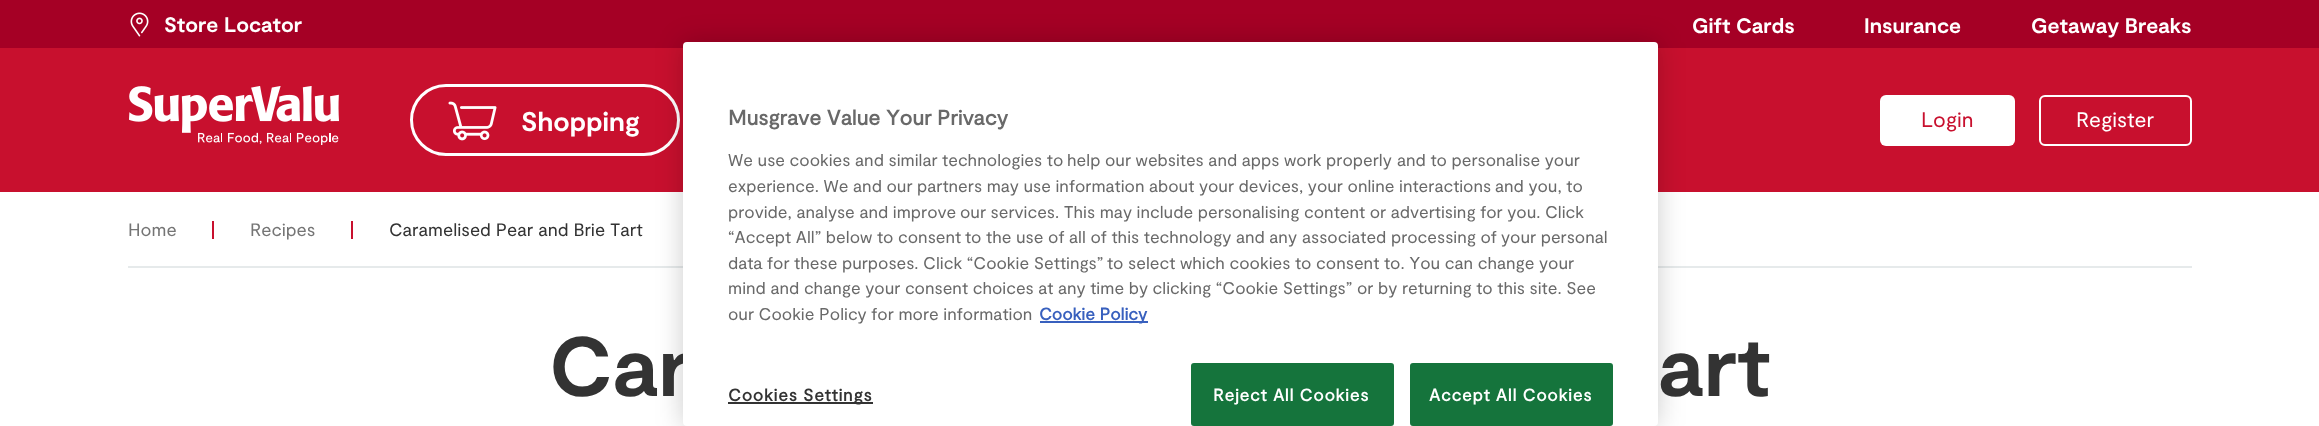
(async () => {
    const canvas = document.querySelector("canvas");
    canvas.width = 2319;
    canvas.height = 426;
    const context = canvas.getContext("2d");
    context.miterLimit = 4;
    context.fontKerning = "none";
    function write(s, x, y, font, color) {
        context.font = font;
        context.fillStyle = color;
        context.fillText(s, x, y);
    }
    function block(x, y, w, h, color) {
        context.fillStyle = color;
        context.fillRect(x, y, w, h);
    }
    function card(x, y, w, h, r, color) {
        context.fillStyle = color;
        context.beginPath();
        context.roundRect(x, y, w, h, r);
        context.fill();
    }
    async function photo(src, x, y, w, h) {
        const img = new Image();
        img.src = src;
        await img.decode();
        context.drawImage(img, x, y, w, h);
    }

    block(0, 0, 2319, 426, "rgb(255, 255, 255)");
    block(0, 0, 2319, 48, "rgb(165, 0, 37)");
    await photo("media/1.png", 130, 12, 19, 25);
    write("Store Locator", 164, 32, "bold 21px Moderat", "rgb(255, 255, 255)");
    write("Gift Cards", 1692, 33, "bold 21px Moderat", "rgb(255, 255, 255)");
    write("Insurance", 1864, 33, "bold 21px Moderat", "rgb(255, 255, 255)");
    write("Getaway Breaks", 2031, 33, "bold 21px Moderat", "rgb(255, 255, 255)");
    block(0, 48, 2319, 144, "rgb(200, 16, 46)");
    await photo("media/2.png", 129, 86, 210, 59);
    context.beginPath();
    context.roundRect(411.5, 85.5, 267, 69, 34.5);
    context.strokeStyle = "rgb(255, 255, 255)";
    context.lineWidth = 3;
    context.stroke();
    await photo("media/3.png", 448, 101, 49, 40);
    write("Shopping", 521, 131, "bold 27px Moderat", "rgb(255, 255, 255)");
    card(1880, 95, 135, 51, 6, "rgb(255, 255, 255)");
    write("Login", 1921, 127, "21px Moderat", "rgb(200, 16, 46)");
    context.beginPath();
    context.roundRect(2040, 96, 151, 49, 5);
    context.lineWidth = 2;
    context.stroke();
    write("Register", 2076, 127, "21px Moderat", "rgb(255, 255, 255)");
    block(128, 266, 2064, 2, "rgb(230, 234, 235)");
    write("Home", 128, 236, "18px Moderat", "rgb(117, 117, 117)");
    block(212, 221, 2, 18, "rgb(200, 16, 46)");
    write("Recipes", 250, 236, "18px Moderat", "rgb(117, 117, 117)");
    block(351, 221, 2, 18, "rgb(200, 16, 46)");
    write("Caramelised Pear and Brie Tart", 389, 236, "18px Moderat", "rgb(51, 51, 51)");
    context.fillStyle = "rgba(0, 0, 0, 0.2)";
    context.filter = "blur(13.5px)";
    context.beginPath();
    context.roundRect(683, 42, 975, 384, 4);
    context.fill();
    context.filter = "none";
    write("Car", 549, 396, "bold 84px Moderat", "rgb(51, 51, 51)");
    card(683, 42, 975, 384, 4, "rgb(255, 255, 255)");
    write("Musgrave Value Your", 728, 125, "bold 21px 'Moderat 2'", "rgb(105, 105, 105)");
    write("Privacy", 937, 125, "bold 21px 'Moderat 2'", "rgb(105, 105, 105)");
    write("We use cookies and similar technologies to", 728, 166, "17.07px Moderat", "rgb(105, 105, 105)");
    write("help our websites and apps work properly", 1067, 166, "17.07px Moderat", "rgb(105, 105, 105)");
    write("and to personalise your", 1397, 166, "17.07px Moderat", "rgb(105, 105, 105)");
    write("experience. We and our partners may use information", 728, 192, "17.07px Moderat", "rgb(105, 105, 105)");
    write("about your devices, your online interactions", 1149, 192, "17.07px Moderat", "rgb(105, 105, 105)");
    write("and you, to", 1495, 192, "17.07px Moderat", "rgb(105, 105, 105)");
    write("provide, analyse and improve", 728, 218, "17.07px Moderat", "rgb(105, 105, 105)");
    write("our services. This may include personalising", 960, 218, "17.07px Moderat", "rgb(105, 105, 105)");
    write("content or advertising for you.", 1304, 218, "17.07px Moderat", "rgb(105, 105, 105)");
    write("Click", 1545, 218, "17.07px Moderat", "rgb(105, 105, 105)");
    write("“Accept All” below to consent", 728, 243, "17.07px Moderat", "rgb(105, 105, 105)");
    write("to the use of all of this technology and any", 965, 243, "17.07px Moderat", "rgb(105, 105, 105)");
    write("associated processing of", 1302, 243, "17.07px Moderat", "rgb(105, 105, 105)");
    write("your personal", 1501, 243, "17.07px Moderat", "rgb(105, 105, 105)");
    write("data for these purposes. Click “Cookie Settings”", 728, 269, "17.07px Moderat", "rgb(105, 105, 105)");
    write("to select which cookies to consent", 1107, 269, "17.07px Moderat", "rgb(105, 105, 105)");
    write("to. You can change", 1384, 269, "17.07px Moderat", "rgb(105, 105, 105)");
    write("your", 1539, 269, "17.07px Moderat", "rgb(105, 105, 105)");
    write("mind and change your consent choices at", 728, 294, "17.07px Moderat", "rgb(105, 105, 105)");
    write("any time by clicking “Cookie Settings”", 1058, 294, "17.07px Moderat", "rgb(105, 105, 105)");
    write("or by returning to this site. See", 1357, 294, "17.07px Moderat", "rgb(105, 105, 105)");
    write("our Cookie Policy for more information", 728, 320, "17.07px Moderat", "rgb(105, 105, 105)");
    block(1040, 321, 108, 2, "rgb(56, 96, 190)");
    write("Cookie Policy", 1039, 320, "bold 17.07px 'Moderat 2'", "rgb(56, 96, 190)");
    block(728, 402, 145, 2, "rgb(51, 51, 51)");
    context.letterSpacing = "0.8px";
    write("Cookies Settings", 728, 401, "bold 17.07px 'Moderat 2'", "rgb(51, 51, 51)");
    context.fillStyle = "rgb(21, 116, 60)";
    context.beginPath();
    context.roundRect(1192, 364, 201, 61, 2);
    context.fill();
    context.strokeStyle = "rgb(21, 116, 60)";
    context.stroke();
    write("Reject All Cookies", 1213, 401, "bold 17.07px 'Moderat 2'", "rgb(255, 255, 255)");
    context.fillStyle = "rgb(21, 116, 60)";
    context.beginPath();
    context.roundRect(1411, 364, 201, 61, 2);
    context.fill();
    context.stroke();
    write("Accept All Cookies", 1429, 401, "bold 17.07px 'Moderat 2'", "rgb(255, 255, 255)");
    context.letterSpacing = "0px";
    write("art", 1658, 396, "bold 84px Moderat", "rgb(51, 51, 51)");
})();
